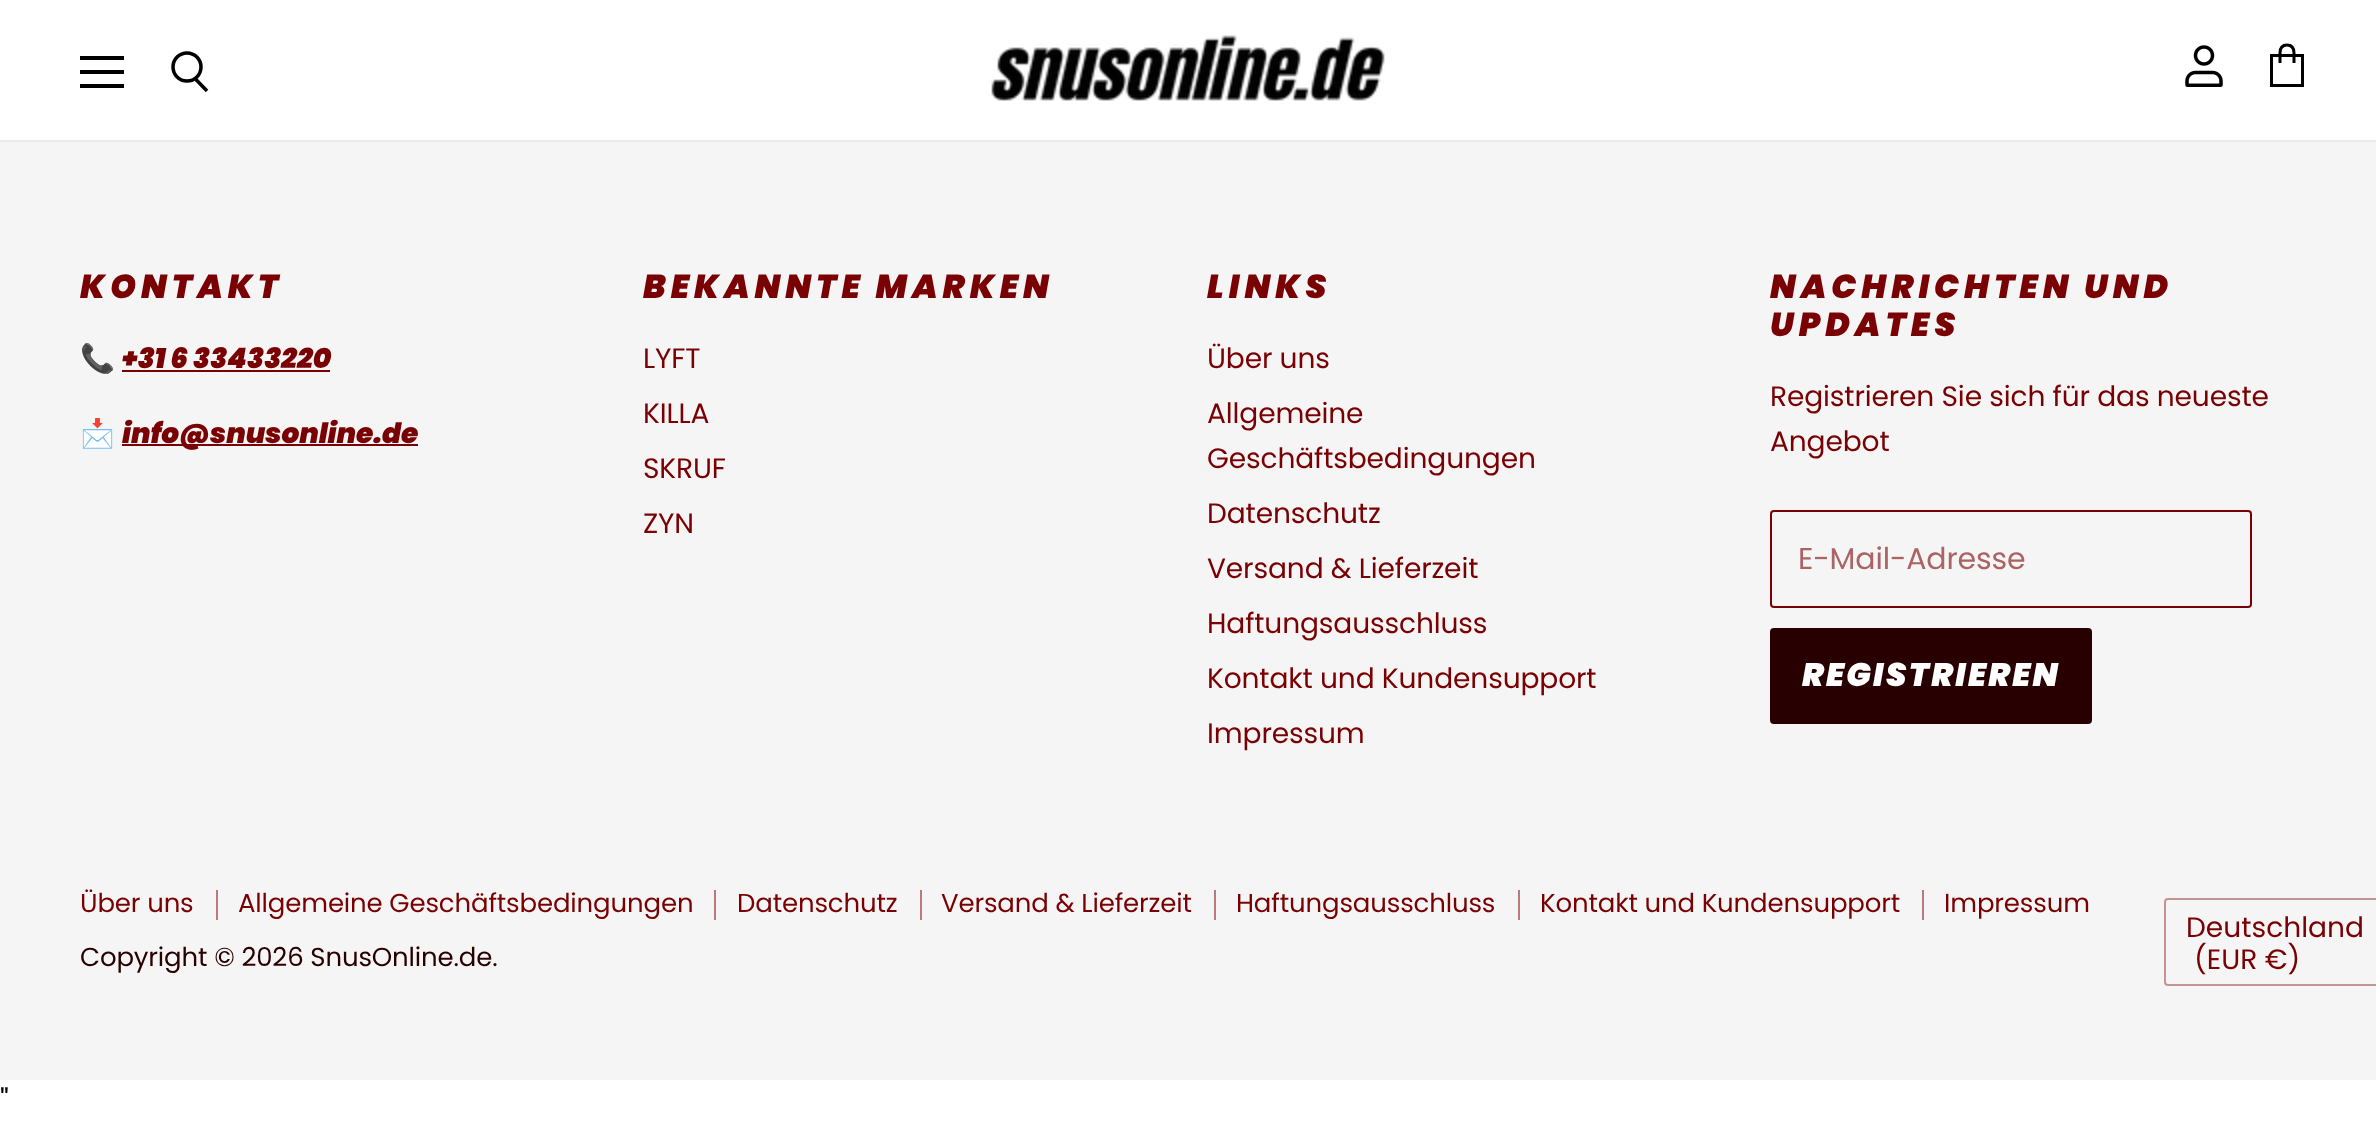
(async () => {
    const canvas = document.querySelector("canvas");
    canvas.width = 2376;
    canvas.height = 1123;
    const context = canvas.getContext("2d");
    context.miterLimit = 4;
    context.fontKerning = "normal";
    function write(s, x, y, font, color) {
        context.font = font;
        context.fillStyle = color;
        context.fillText(s, x, y);
    }
    function block(x, y, w, h, color) {
        context.fillStyle = color;
        context.fillRect(x, y, w, h);
    }
    async function photo(src, x, y, w, h) {
        const img = new Image();
        img.src = src;
        await img.decode();
        context.drawImage(img, x, y, w, h);
    }

    block(0, 0, 2376, 1123, "rgb(255, 255, 255)");
    block(0, 140, 2376, 2, "rgb(234, 234, 234)");
    block(80, 56, 44, 4, "rgb(0, 0, 0)");
    block(80, 70, 44, 4, "rgb(0, 0, 0)");
    block(80, 84, 44, 4, "rgb(0, 0, 0)");
    context.beginPath();
    context.moveTo(207, 91);
    context.lineTo(195, 78.5);
    context.strokeStyle = "rgb(0, 0, 0)";
    context.lineWidth = 3.5;
    context.stroke();
    context.beginPath();
    context.arc(187, 67, 14, 0, Math.PI * 2);
    context.stroke();
    await photo("media/1.png", 991, 35, 394, 66);
    await photo("media/2.png", 2185, 45, 38, 42);
    context.beginPath();
    context.moveTo(2271.5, 55.5);
    context.lineTo(2302.5, 55.5);
    context.lineTo(2302.5, 85.5);
    context.lineTo(2271.5, 85.5);
    context.closePath();
    context.moveTo(2294, 63);
    context.lineTo(2294, 53);
    context.bezierCurveTo(2294, 47.5, 2291, 45, 2287, 45);
    context.bezierCurveTo(2283, 45, 2280, 47.5, 2280, 53);
    context.lineTo(2280, 63);
    context.lineWidth = 3;
    context.stroke();
    block(0, 142, 2376, 938, "rgb(245, 245, 245)");
    context.letterSpacing = "5px";
    write("KONTAKT", 80, 298, "italic 900 33.1px Poppins", "rgb(122, 1, 3)");
    context.letterSpacing = "-0.15px";
    write("📞", 80, 368, "28.1px Noto Color Emoji", "rgb(122, 1, 3)");
    context.letterSpacing = "-0.1px";
    write("+31 6 33433220", 122, 368, "italic 900 28.1px Poppins", "rgb(122, 1, 3)");
    block(122, 370, 208, 2, "rgb(122, 1, 3)");
    context.letterSpacing = "-0.15px";
    write("📩", 80, 443, "28.1px Noto Color Emoji", "rgb(122, 1, 3)");
    block(122, 444, 296, 2, "rgb(122, 1, 3)");
    context.letterSpacing = "-0.1px";
    write("info@snusonline.de", 122, 443, "italic 900 28.1px Poppins", "rgb(122, 1, 3)");
    context.letterSpacing = "5px";
    write("BEKANNTE MARKEN", 643, 298, "italic 900 33.1px Poppins", "rgb(122, 1, 3)");
    context.letterSpacing = "-0.15px";
    write("LYFT", 643, 368, "28.1px Poppins", "rgb(122, 1, 3)");
    write("KILLA", 643, 423, "28.1px Poppins", "rgb(122, 1, 3)");
    write("SKRUF", 643, 478, "28.1px Poppins", "rgb(122, 1, 3)");
    write("ZYN", 643, 533, "28.1px Poppins", "rgb(122, 1, 3)");
    context.letterSpacing = "5px";
    write("LINKS", 1207, 298, "italic 900 33.1px Poppins", "rgb(122, 1, 3)");
    context.letterSpacing = "-0.15px";
    write("Über uns", 1207, 368, "28.1px Poppins", "rgb(122, 1, 3)");
    write("Allgemeine", 1207, 423, "28.1px Poppins", "rgb(122, 1, 3)");
    write("Geschäftsbedingungen", 1207, 468, "28.1px Poppins", "rgb(122, 1, 3)");
    write("Datenschutz", 1207, 523, "28.1px Poppins", "rgb(122, 1, 3)");
    write("Versand & Lieferzeit", 1207, 578, "28.1px Poppins", "rgb(122, 1, 3)");
    write("Haftungsausschluss", 1207, 633, "28.1px Poppins", "rgb(122, 1, 3)");
    write("Kontakt und Kundensupport", 1207, 688, "28.1px Poppins", "rgb(122, 1, 3)");
    write("Impressum", 1207, 743, "28.1px Poppins", "rgb(122, 1, 3)");
    context.letterSpacing = "5px";
    write("NACHRICHTEN UND", 1770, 298, "italic 900 33.1px Poppins", "rgb(122, 1, 3)");
    write("UPDATES", 1770, 336, "italic 900 33.1px Poppins", "rgb(122, 1, 3)");
    context.letterSpacing = "-0.15px";
    write("Registrieren Sie sich für das neueste", 1770, 406, "28.1px Poppins", "rgb(122, 1, 3)");
    write("Angebot", 1770, 451, "28.1px Poppins", "rgb(122, 1, 3)");
    context.beginPath();
    context.roundRect(1771, 511, 480, 96, 3);
    context.strokeStyle = "rgb(122, 1, 3)";
    context.lineWidth = 2;
    context.stroke();
    write("E-Mail-Adresse", 1798, 569, "30px Poppins", "rgb(171, 99, 100)");
    context.fillStyle = "rgb(41, 0, 1)";
    context.beginPath();
    context.roundRect(1771, 629, 320, 94, 3);
    context.fill();
    context.strokeStyle = "rgb(41, 0, 1)";
    context.stroke();
    context.letterSpacing = "2.25px";
    write("REGISTRIEREN", 1802, 686, "italic 900 32.5px Poppins", "rgb(255, 255, 255)");
    block(216, 890, 2, 30, "rgb(184, 123, 124)");
    context.letterSpacing = "-0.15px";
    write("Über uns", 80, 912, "26px Poppins", "rgb(122, 1, 3)");
    block(714, 890, 2, 30, "rgb(184, 123, 124)");
    write("Allgemeine Geschäftsbedingungen", 238, 912, "26px Poppins", "rgb(122, 1, 3)");
    block(920, 890, 2, 30, "rgb(184, 123, 124)");
    write("Datenschutz", 737, 912, "26px Poppins", "rgb(122, 1, 3)");
    block(1214, 890, 2, 30, "rgb(184, 123, 124)");
    write("Versand & Lieferzeit", 941, 912, "26px Poppins", "rgb(122, 1, 3)");
    block(1518, 890, 2, 30, "rgb(184, 123, 124)");
    write("Haftungsausschluss", 1236, 912, "26px Poppins", "rgb(122, 1, 3)");
    block(1922, 890, 2, 30, "rgb(184, 123, 124)");
    write("Kontakt und Kundensupport", 1540, 912, "26px Poppins", "rgb(122, 1, 3)");
    write("Impressum", 1944, 912, "26px Poppins", "rgb(122, 1, 3)");
    write("Copyright © 2026 SnusOnline.de.", 80, 966, "26px Poppins", "rgb(41, 0, 1)");
    context.beginPath();
    context.roundRect(2165, 899, 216, 86, 3);
    context.strokeStyle = "rgb(196, 147, 148)";
    context.stroke();
    context.letterSpacing = "0px";
    write("Deutschland", 2186, 937, "28.1px Poppins", "rgb(122, 1, 3)");
    write("(EUR €)", 2194, 969, "28.1px Poppins", "rgb(122, 1, 3)");
    context.letterSpacing = "-0.15px";
    write("\"", 0, 1111, "30px Poppins", "rgb(0, 0, 0)");
})();
